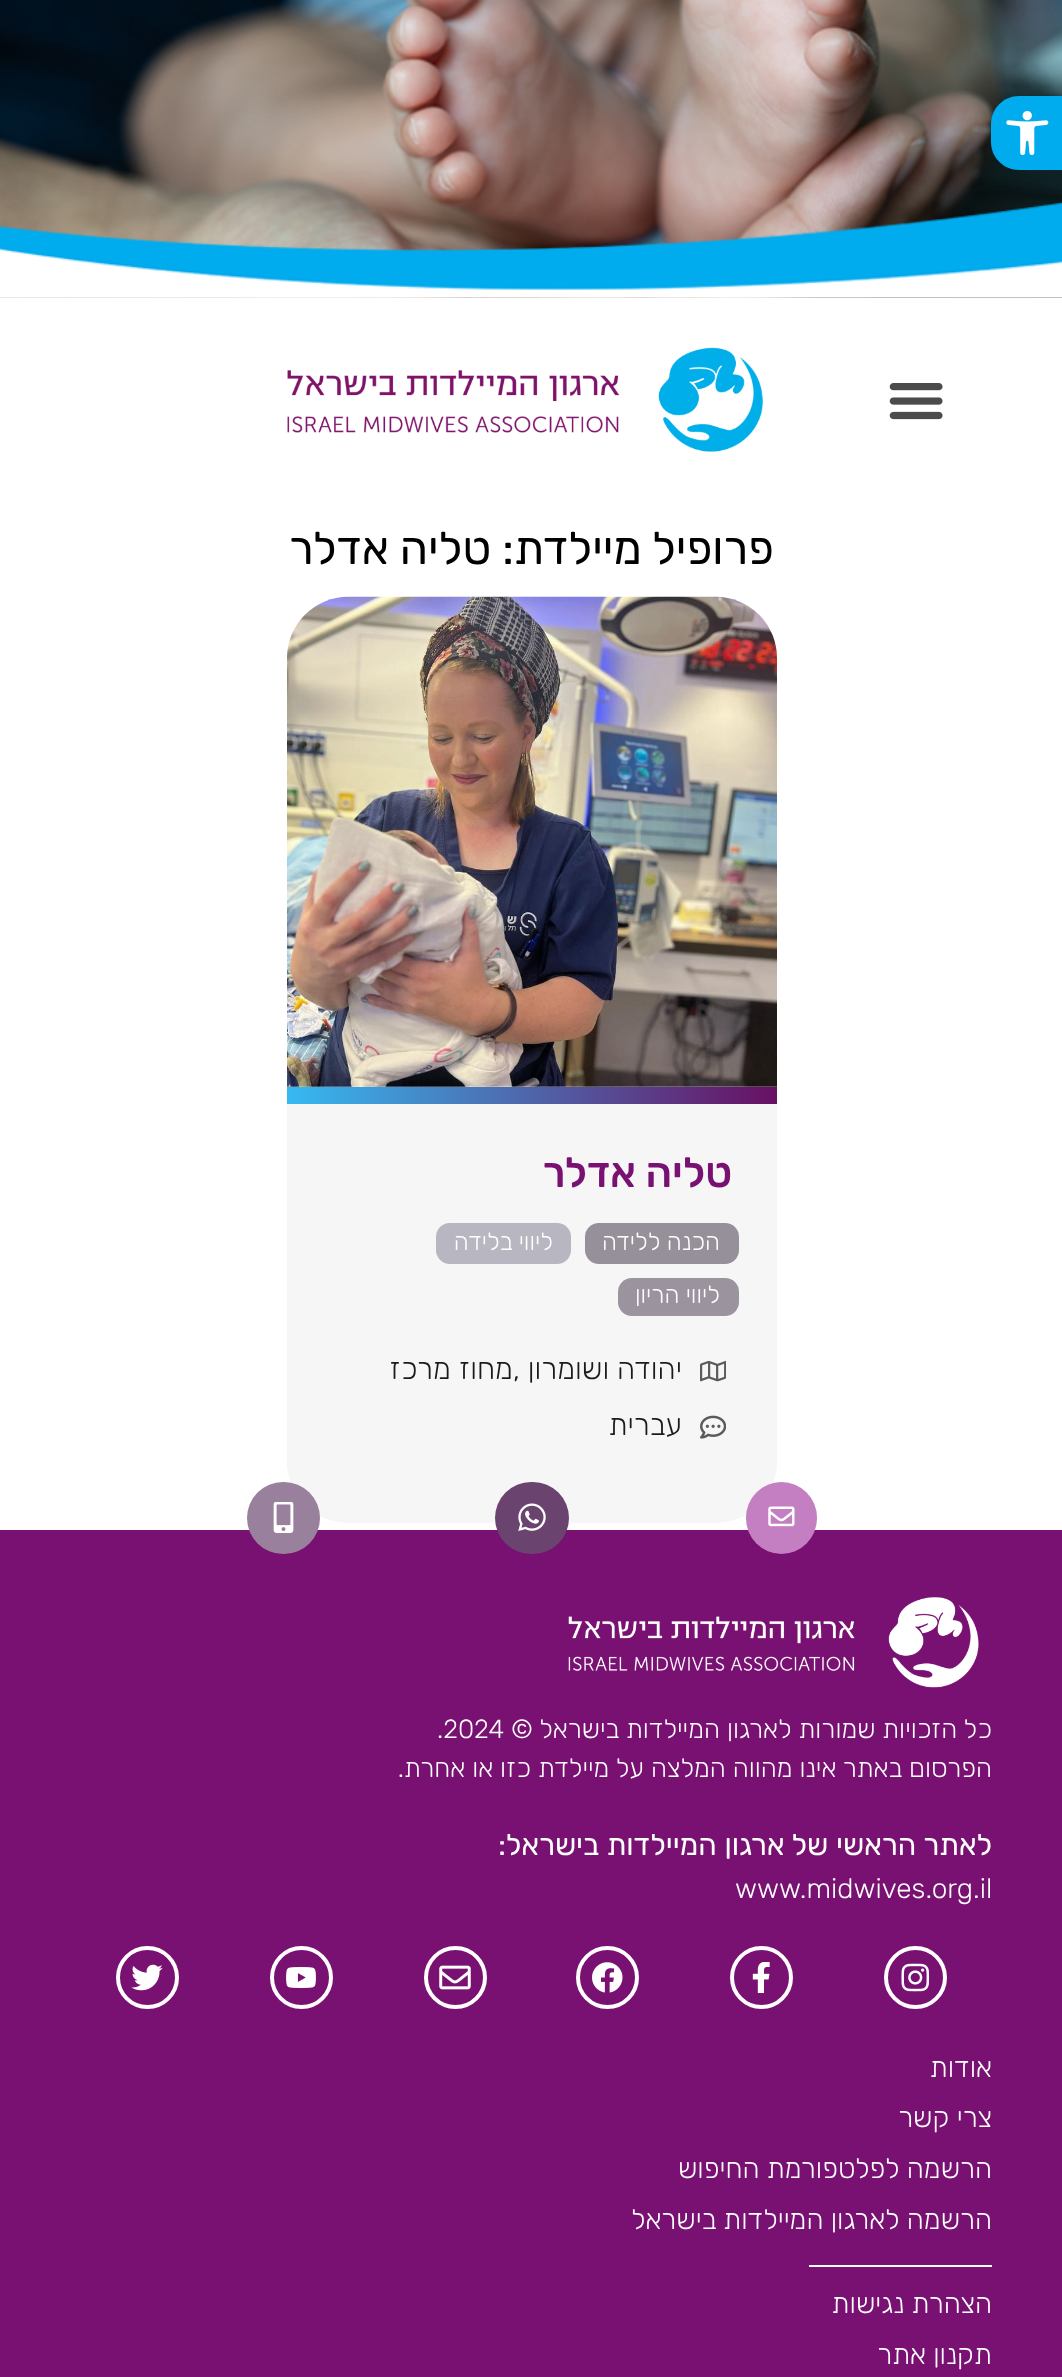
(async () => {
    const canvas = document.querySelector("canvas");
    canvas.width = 1062;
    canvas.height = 2377;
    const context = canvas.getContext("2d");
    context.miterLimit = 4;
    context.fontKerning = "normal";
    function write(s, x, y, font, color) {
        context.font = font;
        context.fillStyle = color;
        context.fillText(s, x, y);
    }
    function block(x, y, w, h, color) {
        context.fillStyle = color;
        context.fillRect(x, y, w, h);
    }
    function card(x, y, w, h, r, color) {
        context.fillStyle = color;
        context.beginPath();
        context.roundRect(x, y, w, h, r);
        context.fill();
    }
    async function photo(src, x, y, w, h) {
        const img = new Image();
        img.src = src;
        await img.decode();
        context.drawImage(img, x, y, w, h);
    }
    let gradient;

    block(0, 0, 1062, 2377, "rgb(255, 255, 255)");
    await photo("media/2.png", 0, 0, 1062, 298);
    context.fillStyle = "rgb(0, 172, 237)";
    context.beginPath();
    context.moveTo(1019, 96);
    context.lineTo(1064, 96);
    context.lineTo(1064, 170);
    context.lineTo(1019, 170);
    context.bezierCurveTo(1003.5, 170, 991, 157.5, 991, 142);
    context.lineTo(991, 124);
    context.bezierCurveTo(991, 108.5, 1003.5, 96, 1019, 96);
    context.closePath();
    context.fill();
    await photo("media/1.png", 1006, 111, 43, 44);
    await photo("media/3.png", 0, 201, 1062, 97);
    await photo("media/4.png", 889, 383, 54, 37);
    await photo("media/5.png", 287, 347, 476, 105);
    context.direction = "rtl";
    write("פרופיל מיילדת: טליה אדלר", 774, 564, "45.5px Rubik", "rgb(0, 0, 0)");
    await photo("media/6.png", 287, 596, 490, 491);
    gradient = context.createLinearGradient(287, 1096, 777, 1096);
    gradient.addColorStop(0, "rgb(54, 185, 241)");
    gradient.addColorStop(1, "rgb(104, 16, 98)");
    context.fillStyle = gradient;
    context.fillRect(287, 1087, 490, 17);
    context.fillStyle = "rgb(246, 246, 246)";
    context.beginPath();
    context.roundRect(287, 1104, 490, 419, [0, 0, 61, 61]);
    context.fill();
    write("טליה אדלר", 732, 1187, "500 42px Rubik", "rgb(121, 17, 114)");
    card(585, 1223, 154, 41, 14, "rgb(149, 144, 154)");
    write("הכנה ללידה", 720, 1250, "300 24.5px Rubik", "rgb(255, 255, 255)");
    card(436, 1223, 135, 41, 14, "rgb(183, 182, 193)");
    write("ליווי בלידה", 553, 1250, "300 24.5px Rubik", "rgb(255, 255, 255)");
    card(618, 1278, 121, 38, 14, "rgb(155, 147, 158)");
    write("ליווי הריון", 720, 1303, "300 24.5px Rubik", "rgb(255, 255, 255)");
    await photo("media/7.png", 700, 1360, 26, 22);
    write("יהודה ושומרון", 682, 1379, "300 29.75px Rubik", "rgb(27, 27, 27)");
    context.direction = "ltr";
    write(",", 513, 1379, "300 29.75px Rubik", "rgb(27, 27, 27)");
    context.wordSpacing = "1px";
    context.direction = "rtl";
    write("מחוז מרכז", 513, 1379, "300 29.75px Rubik", "rgb(27, 27, 27)");
    await photo("media/8.png", 700, 1415, 26, 24);
    context.wordSpacing = "0px";
    write("עברית", 682, 1435, "300 29.75px Rubik", "rgb(27, 27, 27)");
    block(0, 1530, 1062, 847, "rgb(121, 17, 114)");
    card(746, 1482, 71, 72, 35.5, "rgb(196, 126, 194)");
    await photo("media/9.png", 768, 1506, 27, 21);
    card(495, 1482, 74, 72, 36, "rgb(106, 67, 111)");
    await photo("media/10.png", 518, 1503, 28, 28);
    card(247, 1482, 73, 72, 36, "rgb(153, 128, 156)");
    await photo("media/11.png", 273, 1502, 21, 31);
    await photo("media/12.png", 568, 1597, 411, 91);
    context.wordSpacing = "0.25px";
    write("כל הזכויות שמורות לארגון המיילדות בישראל ©", 992, 1738, "300 26.25px Rubik", "rgb(255, 255, 255)");
    context.wordSpacing = "0px";
    context.direction = "ltr";
    write(".2024", 437, 1738, "300 26.25px Rubik", "rgb(255, 255, 255)");
    context.wordSpacing = "0.25px";
    context.direction = "rtl";
    write("הפרסום באתר אינו מהווה המלצה על מיילדת כזו או אחרת.", 992, 1777, "300 26.25px Rubik", "rgb(255, 255, 255)");
    context.wordSpacing = "0.5px";
    write("לאתר הראשי של ארגון המיילדות בישראל:", 992, 1855, "29.75px Rubik", "rgb(255, 255, 255)");
    context.wordSpacing = "0px";
    context.direction = "ltr";
    write("www.midwives.org.il", 735, 1898, "300 28px Rubik", "rgb(255, 255, 255)");
    context.beginPath();
    context.arc(915.5, 1977.5, 29.5, 0, Math.PI * 2);
    context.strokeStyle = "rgb(255, 255, 255)";
    context.lineWidth = 4;
    context.stroke();
    await photo("media/13.png", 901, 1963, 29, 29);
    context.beginPath();
    context.arc(761.5, 1977.5, 29.5, 0, Math.PI * 2);
    context.stroke();
    await photo("media/14.png", 752, 1962, 18, 31);
    context.beginPath();
    context.arc(607.5, 1977.5, 29.5, 0, Math.PI * 2);
    context.stroke();
    await photo("media/15.png", 592, 1962, 31, 31);
    context.beginPath();
    context.arc(455.5, 1977.5, 29.5, 0, Math.PI * 2);
    context.stroke();
    await photo("media/16.png", 439, 1965, 32, 25);
    context.beginPath();
    context.arc(301.5, 1977.5, 29.5, 0, Math.PI * 2);
    context.stroke();
    await photo("media/17.png", 286, 1967, 30, 21);
    context.beginPath();
    context.arc(147.5, 1977.5, 29.5, 0, Math.PI * 2);
    context.stroke();
    await photo("media/18.png", 131, 1964, 32, 27);
    context.direction = "rtl";
    write("אודות", 992, 2077, "300 28px Rubik", "rgb(255, 255, 255)");
    write("צרי קשר", 992, 2127, "300 28px Rubik", "rgb(255, 255, 255)");
    write("הרשמה לפלטפורמת החיפוש", 992, 2178, "300 28px Rubik", "rgb(255, 255, 255)");
    write("הרשמה לארגון המיילדות בישראל", 992, 2229, "300 28px Rubik", "rgb(255, 255, 255)");
    block(809, 2265, 183, 2, "rgb(255, 255, 255)");
    write("הצהרת נגישות", 992, 2313, "300 28px Rubik", "rgb(255, 255, 255)");
    write("תקנון אתר", 992, 2364, "300 28px Rubik", "rgb(255, 255, 255)");
})();
